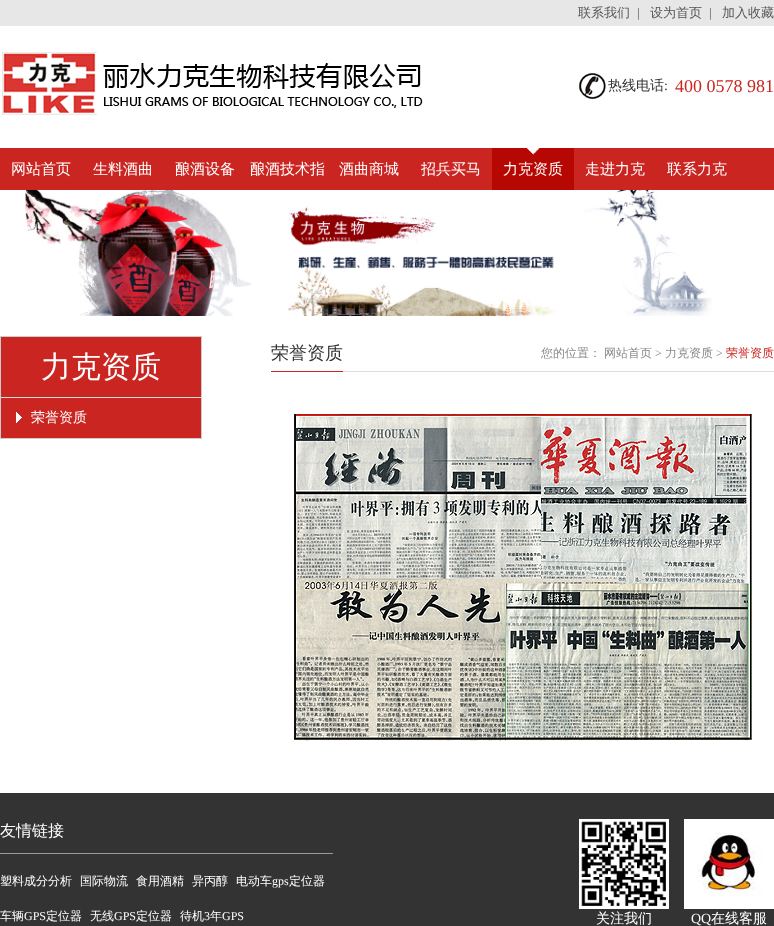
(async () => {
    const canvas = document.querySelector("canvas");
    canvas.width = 774;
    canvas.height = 926;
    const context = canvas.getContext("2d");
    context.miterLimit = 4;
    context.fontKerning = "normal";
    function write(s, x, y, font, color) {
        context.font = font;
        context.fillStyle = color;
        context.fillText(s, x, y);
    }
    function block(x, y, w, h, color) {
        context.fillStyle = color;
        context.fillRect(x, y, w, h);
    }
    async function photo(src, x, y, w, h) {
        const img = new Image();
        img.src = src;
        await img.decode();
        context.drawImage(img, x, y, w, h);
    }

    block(0, 0, 774, 926, "rgb(255, 255, 255)");
    block(0, 0, 774, 26, "rgb(231, 231, 231)");
    write("联系我们", 578, 17, "500 13px WenQuanYi Zen Hei", "rgb(85, 85, 85)");
    write("|", 637, 17, "13px Liberation Serif", "rgb(85, 85, 85)");
    write("设为首页", 650, 17, "500 13px WenQuanYi Zen Hei", "rgb(85, 85, 85)");
    write("|", 709, 17, "13px Liberation Serif", "rgb(85, 85, 85)");
    write("加入收藏", 722, 17, "500 13px WenQuanYi Zen Hei", "rgb(85, 85, 85)");
    await photo("media/1.png", 2, 52, 421, 63);
    await photo("media/2.png", 579, 73, 27, 27);
    write("热线电话", 608, 90, "500 14px WenQuanYi Zen Hei", "rgb(51, 51, 51)");
    write(":", 664, 90, "14px Liberation Serif", "rgb(51, 51, 51)");
    write("400 0578 981", 675, 92, "18px Liberation Serif", "rgb(202, 37, 33)");
    block(0, 148, 774, 42, "rgb(202, 37, 33)");
    write("网站首页", 11, 174, "500 15px WenQuanYi Zen Hei", "rgb(255, 255, 255)");
    write("生料酒曲", 93, 174, "500 15px WenQuanYi Zen Hei", "rgb(255, 255, 255)");
    write("酿酒设备", 175, 174, "500 15px WenQuanYi Zen Hei", "rgb(255, 255, 255)");
    write("酿酒技术指", 250, 174, "500 15px WenQuanYi Zen Hei", "rgb(255, 255, 255)");
    write("酒曲商城", 339, 174, "500 15px WenQuanYi Zen Hei", "rgb(255, 255, 255)");
    write("招兵买马", 421, 174, "500 15px WenQuanYi Zen Hei", "rgb(255, 255, 255)");
    block(492, 148, 82, 42, "rgb(183, 7, 3)");
    await photo("media/3.png", 527, 148, 13, 7);
    write("力克资质", 503, 174, "500 15px WenQuanYi Zen Hei", "rgb(255, 255, 255)");
    write("走进力克", 585, 174, "500 15px WenQuanYi Zen Hei", "rgb(255, 255, 255)");
    write("联系力克", 667, 174, "500 15px WenQuanYi Zen Hei", "rgb(255, 255, 255)");
    await photo("media/4.png", 25, 190, 687, 126);
    context.strokeStyle = "rgb(204, 204, 204)";
    context.strokeRect(0.5, 336.5, 201, 102);
    block(1, 337, 200, 60, "rgb(202, 37, 33)");
    block(1, 397, 200, 1, "rgb(221, 221, 221)");
    write("力克资质", 41, 377, "500 30px WenQuanYi Zen Hei", "rgb(255, 255, 255)");
    block(1, 398, 200, 40, "rgb(202, 37, 33)");
    await photo("media/5.png", 16, 412, 6, 11);
    write("荣誉资质", 31, 422, "500 14px WenQuanYi Zen Hei", "rgb(255, 255, 255)");
    block(343, 371, 431, 1, "rgb(221, 221, 221)");
    block(271, 371, 72, 1, "rgb(202, 37, 33)");
    write("荣誉资质", 271, 359, "500 18px WenQuanYi Zen Hei", "rgb(51, 51, 51)");
    write("您的位置：", 541, 357, "500 12px WenQuanYi Zen Hei", "rgb(136, 136, 136)");
    write("网站首页", 604, 357, "500 12px WenQuanYi Zen Hei", "rgb(136, 136, 136)");
    write(">", 655, 357, "12px Liberation Serif", "rgb(136, 136, 136)");
    write("力克资质", 665, 357, "500 12px WenQuanYi Zen Hei", "rgb(136, 136, 136)");
    write(">", 716, 357, "12px Liberation Serif", "rgb(136, 136, 136)");
    write("荣誉资质", 726, 357, "500 12px WenQuanYi Zen Hei", "rgb(202, 37, 33)");
    await photo("media/6.png", 294, 411, 458, 330);
    block(0, 793, 774, 133, "rgb(51, 51, 51)");
    block(0, 853, 333, 1, "rgb(153, 153, 153)");
    write("友情链接", 0, 836, "500 16px WenQuanYi Zen Hei", "rgb(255, 255, 255)");
    write("塑料成分分析", 0, 885, "500 12px WenQuanYi Zen Hei", "rgb(255, 255, 255)");
    write("国际物流", 80, 885, "500 12px WenQuanYi Zen Hei", "rgb(255, 255, 255)");
    write("食用酒精", 136, 885, "500 12px WenQuanYi Zen Hei", "rgb(255, 255, 255)");
    write("异丙醇", 192, 885, "500 12px WenQuanYi Zen Hei", "rgb(255, 255, 255)");
    write("电动车", 236, 885, "500 12px WenQuanYi Zen Hei", "rgb(255, 255, 255)");
    write("gps", 272, 885, "12px Liberation Serif", "rgb(255, 255, 255)");
    write("定位器", 289, 885, "500 12px WenQuanYi Zen Hei", "rgb(255, 255, 255)");
    write("车辆", 0, 920, "500 12px WenQuanYi Zen Hei", "rgb(255, 255, 255)");
    write("GPS", 24, 920, "12px Liberation Serif", "rgb(255, 255, 255)");
    write("定位器", 46, 920, "500 12px WenQuanYi Zen Hei", "rgb(255, 255, 255)");
    write("无线", 90, 920, "500 12px WenQuanYi Zen Hei", "rgb(255, 255, 255)");
    write("GPS", 114, 920, "12px Liberation Serif", "rgb(255, 255, 255)");
    write("定位器", 136, 920, "500 12px WenQuanYi Zen Hei", "rgb(255, 255, 255)");
    write("待机", 180, 920, "500 12px WenQuanYi Zen Hei", "rgb(255, 255, 255)");
    write("3", 204, 920, "12px Liberation Serif", "rgb(255, 255, 255)");
    write("年", 210, 920, "500 12px WenQuanYi Zen Hei", "rgb(255, 255, 255)");
    write("GPS", 222, 920, "12px Liberation Serif", "rgb(255, 255, 255)");
    await photo("media/7.png", 579, 819, 90, 90);
    write("关注我们", 596, 923, "500 14px WenQuanYi Zen Hei", "rgb(255, 255, 255)");
    await photo("media/8.png", 684, 819, 90, 90);
    write("QQ", 691, 923, "14px Liberation Serif", "rgb(255, 255, 255)");
    write("在线客服", 711, 923, "500 14px WenQuanYi Zen Hei", "rgb(255, 255, 255)");
})();
